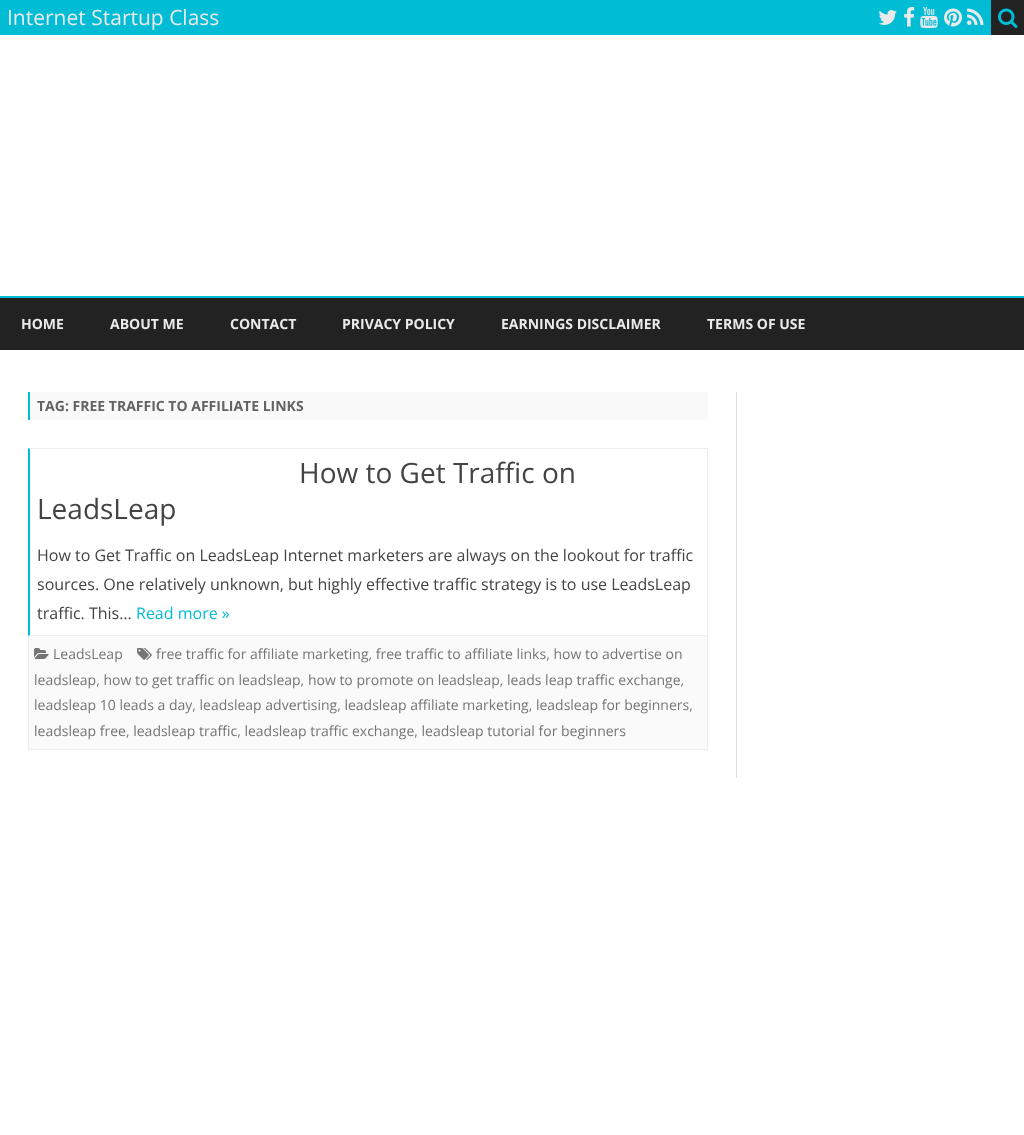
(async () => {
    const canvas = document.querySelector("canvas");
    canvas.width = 1024;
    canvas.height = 1135;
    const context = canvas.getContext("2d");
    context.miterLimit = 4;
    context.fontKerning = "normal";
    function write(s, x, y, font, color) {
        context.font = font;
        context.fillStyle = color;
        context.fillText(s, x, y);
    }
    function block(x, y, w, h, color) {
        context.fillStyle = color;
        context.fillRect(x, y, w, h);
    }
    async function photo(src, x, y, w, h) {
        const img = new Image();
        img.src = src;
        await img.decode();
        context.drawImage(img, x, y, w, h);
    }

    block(0, 0, 1024, 1135, "rgb(255, 255, 255)");
    block(0, 0, 991, 35, "rgb(0, 188, 213)");
    write("Internet Startup Class", 7, 25, "21px Open Sans", "rgb(234, 234, 234)");
    await photo("media/1.png", 878, 10, 19, 15);
    await photo("media/2.png", 904, 7, 11, 20);
    await photo("media/3.png", 920, 7, 18, 21);
    await photo("media/4.png", 944, 8, 18, 19);
    await photo("media/5.png", 967, 8, 17, 17);
    block(991, 0, 33, 35, "rgb(34, 34, 34)");
    await photo("media/6.png", 998, 8, 20, 20);
    block(0, 296, 1024, 2, "rgb(0, 188, 213)");
    block(0, 298, 1024, 52, "rgb(34, 34, 34)");
    write("HOME", 21, 329, "bold 14px Open Sans", "rgb(234, 234, 234)");
    write("ABOUT ME", 110, 329, "bold 14px Open Sans", "rgb(234, 234, 234)");
    write("CONTACT", 230, 329, "bold 14px Open Sans", "rgb(234, 234, 234)");
    write("PRIVACY POLICY", 342, 329, "bold 14px Open Sans", "rgb(234, 234, 234)");
    write("EARNINGS DISCLAIMER", 501, 329, "bold 14px Open Sans", "rgb(234, 234, 234)");
    write("TERMS OF USE", 707, 329, "bold 14px Open Sans", "rgb(234, 234, 234)");
    block(736, 392, 1, 386, "rgb(224, 224, 224)");
    block(30, 392, 678, 28, "rgb(249, 249, 249)");
    block(28, 392, 2, 28, "rgb(0, 188, 213)");
    write("TAG: FREE TRAFFIC TO AFFILIATE LINKS", 37, 411, "bold 14px Open Sans", "rgb(99, 99, 99)");
    context.fillStyle = "rgb(237, 237, 237)";
    context.beginPath();
    context.moveTo(28, 448);
    context.lineTo(708, 448);
    context.lineTo(707, 449);
    context.lineTo(30, 449);
    context.closePath();
    context.fill();
    block(707, 448, 1, 188, "rgb(237, 237, 237)");
    context.beginPath();
    context.moveTo(708, 636);
    context.lineTo(28, 636);
    context.lineTo(30, 635);
    context.lineTo(707, 635);
    context.closePath();
    context.fill();
    context.fillStyle = "rgb(0, 188, 213)";
    context.beginPath();
    context.moveTo(28, 636);
    context.lineTo(28, 448);
    context.lineTo(30, 449);
    context.lineTo(30, 635);
    context.closePath();
    context.fill();
    write("How to Get Traffic on", 299, 483, "28px Open Sans", "rgb(68, 68, 68)");
    write("LeadsLeap", 37, 519, "28px Open Sans", "rgb(68, 68, 68)");
    write("How to Get Traffic on LeadsLeap Internet marketers are always on the lookout for traffic", 37, 561, "16px Open Sans", "rgb(68, 68, 68)");
    write("sources. One relatively unknown, but highly effective traffic strategy is to use LeadsLeap", 37, 590, "16px Open Sans", "rgb(68, 68, 68)");
    write("traffic. This…", 37, 619, "16px Open Sans", "rgb(68, 68, 68)");
    write("Read more »", 136, 619, "16px Open Sans", "rgb(0, 188, 213)");
    block(29, 636, 678, 113, "rgb(250, 250, 250)");
    block(707, 636, 1, 114, "rgb(237, 237, 237)");
    block(28, 749, 680, 1, "rgb(237, 237, 237)");
    block(28, 636, 1, 114, "rgb(237, 237, 237)");
    await photo("media/7.png", 137, 648, 15, 12);
    write("free traffic for affiliate marketing, free traffic to affiliate links, how to advertise on", 156, 659, "14px Open Sans", "rgb(117, 117, 117)");
    write("leadsleap, how to get traffic on leadsleap, how to promote on leadsleap, leads leap traffic exchange,", 34, 685, "14px Open Sans", "rgb(117, 117, 117)");
    write("leadsleap 10 leads a day, leadsleap advertising, leadsleap affiliate marketing, leadsleap for beginners,", 34, 710, "14px Open Sans", "rgb(117, 117, 117)");
    write("leadsleap free, leadsleap traffic, leadsleap traffic exchange, leadsleap tutorial for beginners", 34, 736, "14px Open Sans", "rgb(117, 117, 117)");
    await photo("media/8.png", 34, 648, 15, 11);
    write("LeadsLeap", 53, 659, "14px Open Sans", "rgb(117, 117, 117)");
})();
